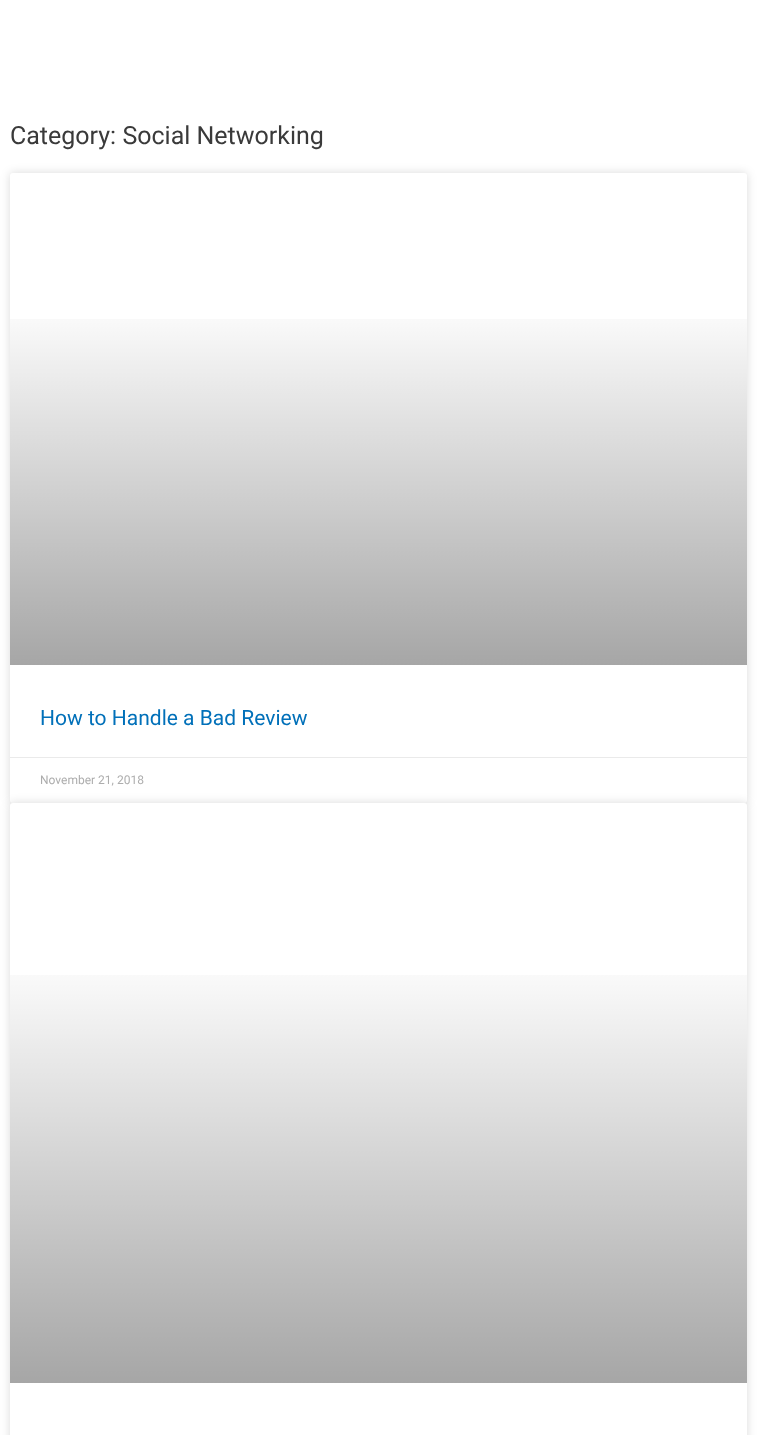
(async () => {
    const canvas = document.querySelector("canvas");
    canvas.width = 757;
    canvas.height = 1435;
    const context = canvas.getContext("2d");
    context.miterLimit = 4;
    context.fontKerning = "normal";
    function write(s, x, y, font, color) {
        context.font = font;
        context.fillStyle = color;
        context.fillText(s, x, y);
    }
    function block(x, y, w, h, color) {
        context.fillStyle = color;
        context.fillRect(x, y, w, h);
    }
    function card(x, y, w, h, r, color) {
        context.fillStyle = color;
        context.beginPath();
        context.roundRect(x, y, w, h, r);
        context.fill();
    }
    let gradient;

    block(0, 0, 757, 1435, "rgb(255, 255, 255)");
    write("Category: Social Networking", 10, 144, "25px Roboto", "rgb(58, 58, 58)");
    context.fillStyle = "rgba(0, 0, 0, 0.15)";
    context.filter = "blur(5px)";
    context.beginPath();
    context.roundRect(10, 173, 737, 630, 3);
    context.fill();
    context.filter = "none";
    card(10, 173, 737, 630, 3, "rgb(255, 255, 255)");
    gradient = context.createLinearGradient(379, 665, 379, 173);
    gradient.addColorStop(0, "rgba(0, 0, 0, 0.35)");
    gradient.addColorStop(0.75, "rgba(0, 0, 0, 0)");
    context.fillStyle = gradient;
    context.fillRect(10, 319, 737, 346);
    write("How to Handle a Bad Review", 40, 725, "21px Roboto", "rgb(1, 112, 185)");
    block(10, 757, 737, 1, "rgb(234, 234, 234)");
    write("November 21, 2018", 40, 784, "12px Roboto", "rgb(173, 173, 173)");
    context.fillStyle = "rgba(0, 0, 0, 0.15)";
    context.filter = "blur(5px)";
    context.beginPath();
    context.roundRect(10, 803, 737, 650, 3);
    context.fill();
    context.filter = "none";
    card(10, 803, 737, 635, 3, "rgb(255, 255, 255)");
    gradient = context.createLinearGradient(379, 1383, 379, 803);
    gradient.addColorStop(0, "rgba(0, 0, 0, 0.35)");
    gradient.addColorStop(0.75, "rgba(0, 0, 0, 0)");
    context.fillStyle = gradient;
    context.fillRect(10, 975, 737, 408);
})();
